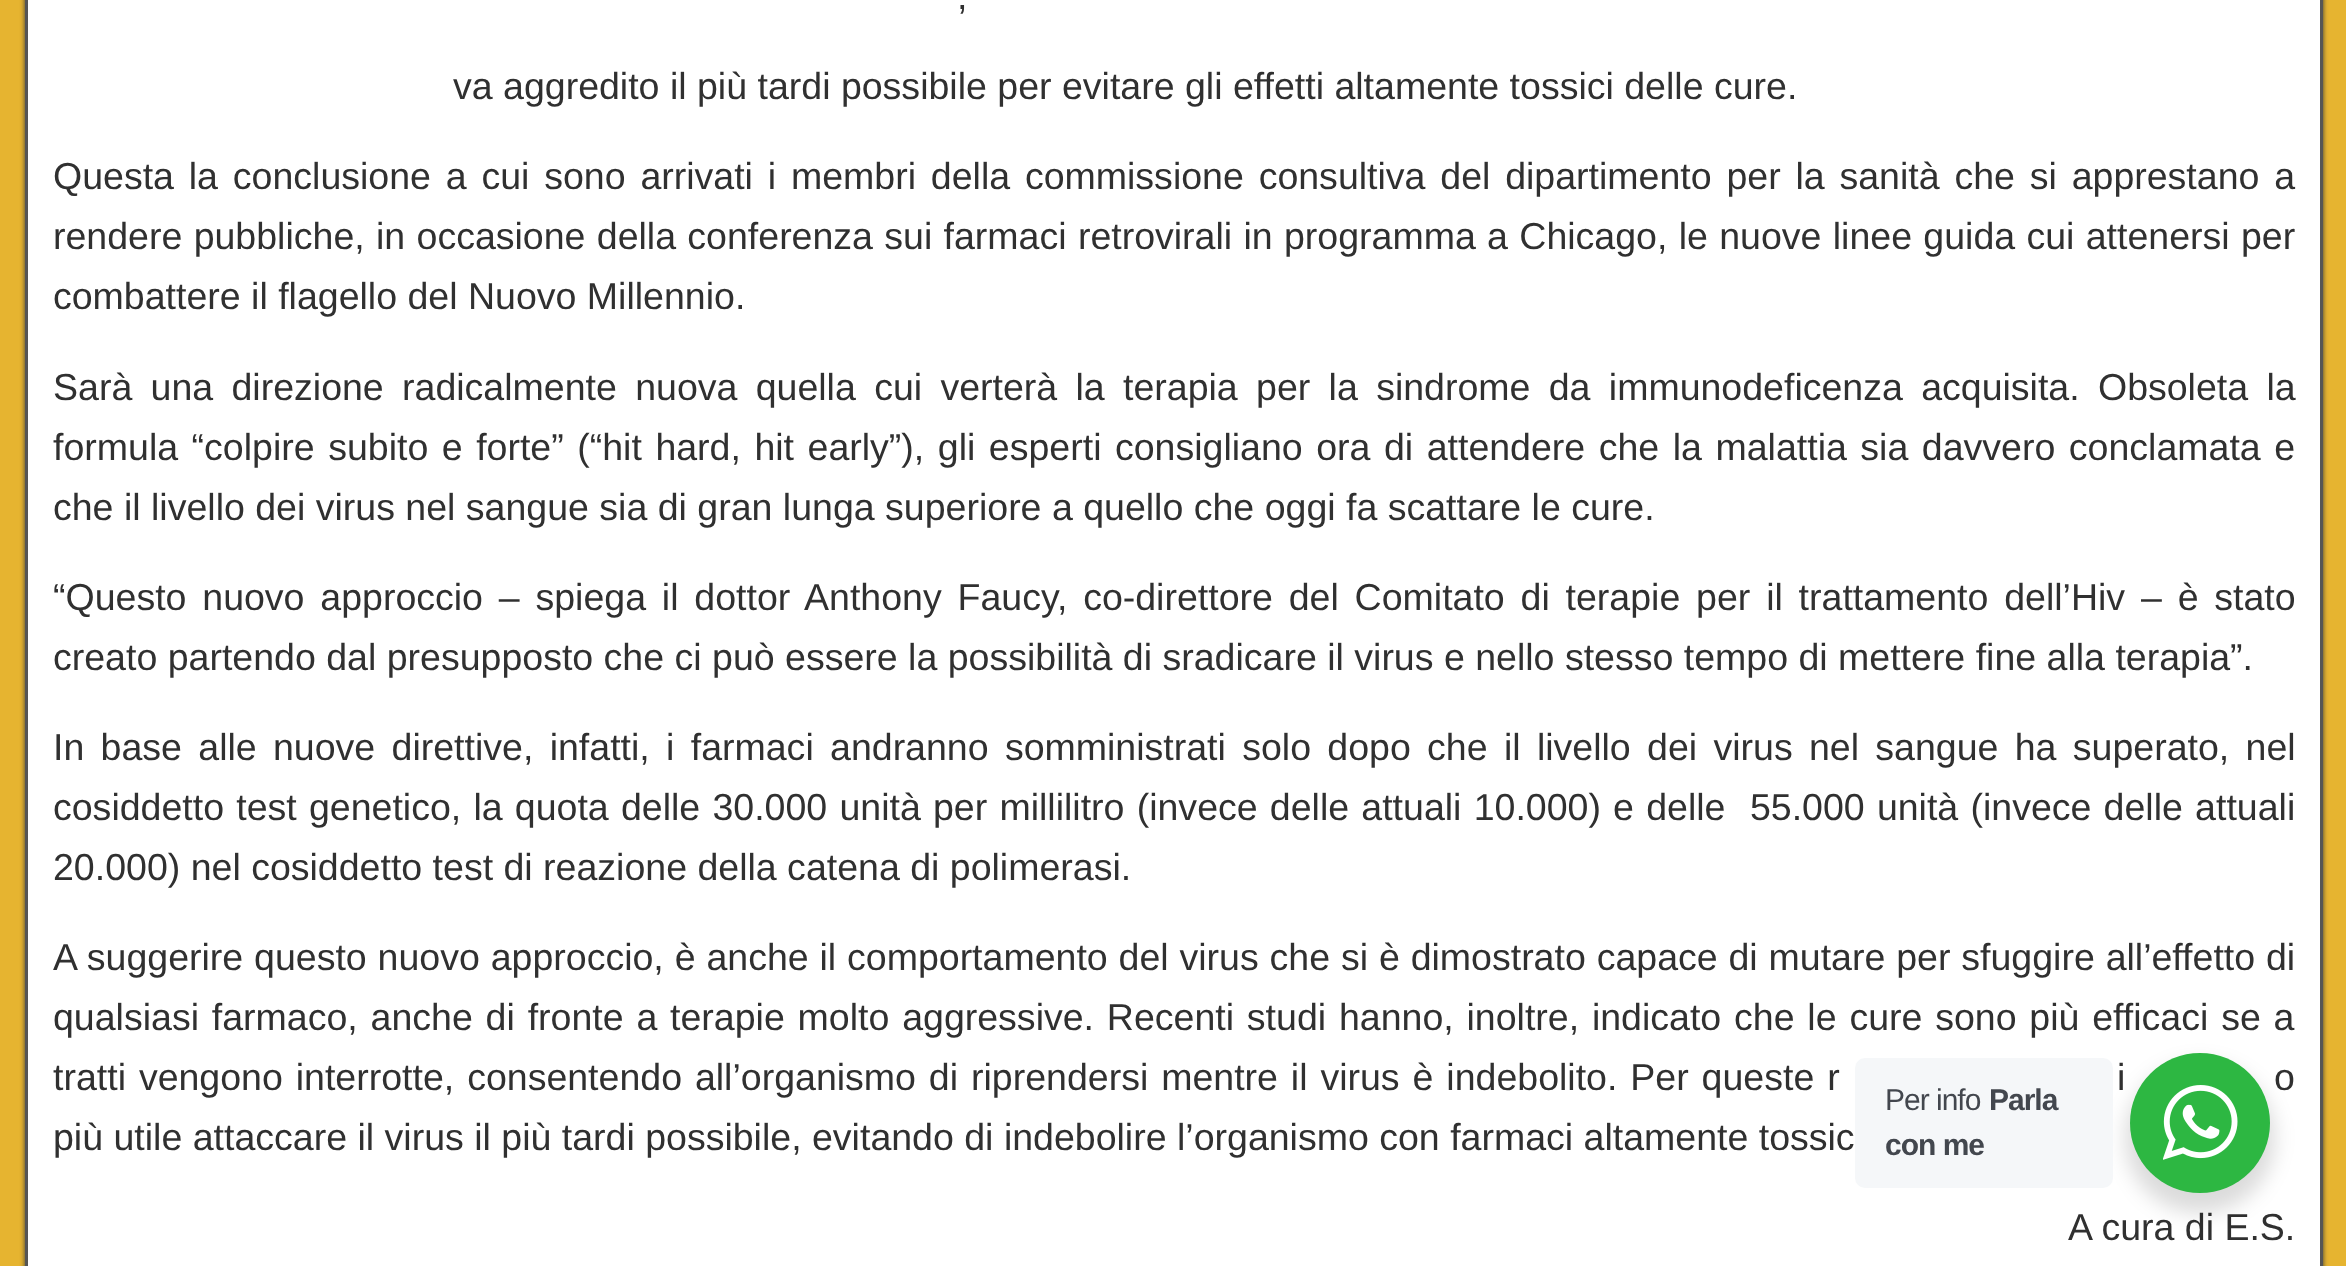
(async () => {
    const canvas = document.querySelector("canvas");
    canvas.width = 2346;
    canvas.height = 1266;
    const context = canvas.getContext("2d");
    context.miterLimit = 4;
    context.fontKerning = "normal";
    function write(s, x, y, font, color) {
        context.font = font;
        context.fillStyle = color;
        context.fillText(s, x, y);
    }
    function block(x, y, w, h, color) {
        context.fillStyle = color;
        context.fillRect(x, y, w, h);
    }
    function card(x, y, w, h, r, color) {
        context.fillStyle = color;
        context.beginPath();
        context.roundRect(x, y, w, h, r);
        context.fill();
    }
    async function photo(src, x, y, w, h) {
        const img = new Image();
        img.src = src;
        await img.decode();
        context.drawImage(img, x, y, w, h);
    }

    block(0, 0, 2346, 1266, "rgb(230, 180, 48)");
    context.fillStyle = "rgb(51, 51, 51)";
    context.filter = "blur(2.5px)";
    context.beginPath();
    context.rect(25, -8, 2298, 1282);
    context.fill();
    context.filter = "none";
    context.fillStyle = "rgb(255, 255, 255)";
    context.beginPath();
    context.rect(26.5, -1.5, 2295, 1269);
    context.fill();
    context.strokeStyle = "rgb(85, 85, 85)";
    context.lineWidth = 3;
    context.stroke();
    write(",", 957, 9, "37.52px Arimo", "rgb(48, 48, 48)");
    write("va aggredito il più tardi possibile per evitare gli effetti altamente tossici delle cure.", 453, 99, "37.52px Arimo", "rgb(48, 48, 48)");
    context.wordSpacing = "4.4px";
    write("Questa la conclusione a cui sono arrivati i membri della commissione consultiva del dipartimento per la sanità che si apprestano a", 53, 189, "37.52px Arimo", "rgb(48, 48, 48)");
    context.wordSpacing = "0.9px";
    write("rendere pubbliche, in occasione della conferenza sui farmaci retrovirali in programma a Chicago, le nuove linee guida cui attenersi per", 53, 249, "37.52px Arimo", "rgb(48, 48, 48)");
    context.wordSpacing = "0px";
    write("combattere il flagello del Nuovo Millennio.", 53, 309, "37.52px Arimo", "rgb(48, 48, 48)");
    context.wordSpacing = "7.9px";
    write("Sarà una direzione radicalmente nuova quella cui verterà la terapia per la sindrome da immunodeficenza acquisita. Obsoleta la", 53, 400, "37.52px Arimo", "rgb(48, 48, 48)");
    context.wordSpacing = "3.1px";
    write("formula “colpire subito e forte” (“hit hard, hit early”), gli esperti consigliano ora di attendere che la malattia sia davvero conclamata e", 53, 460, "37.52px Arimo", "rgb(48, 48, 48)");
    context.wordSpacing = "0px";
    write("che il livello dei virus nel sangue sia di gran lunga superiore a quello che oggi fa scattare le cure.", 53, 520, "37.52px Arimo", "rgb(48, 48, 48)");
    context.wordSpacing = "5.4px";
    write("“Questo nuovo approccio – spiega il dottor Anthony Faucy, co-direttore del Comitato di terapie per il trattamento dell’Hiv – è stato", 53, 610, "37.52px Arimo", "rgb(48, 48, 48)");
    context.wordSpacing = "0px";
    write("creato partendo dal presupposto che ci può essere la possibilità di sradicare il virus e nello stesso tempo di mettere fine alla terapia”.", 53, 670, "37.52px Arimo", "rgb(48, 48, 48)");
    context.wordSpacing = "5.9px";
    write("In base alle nuove direttive, infatti, i farmaci andranno somministrati solo dopo che il livello dei virus nel sangue ha superato, nel", 53, 760, "37.52px Arimo", "rgb(48, 48, 48)");
    context.wordSpacing = "1.8px";
    write("cosiddetto test genetico, la quota delle 30.000 unità per millilitro (invece delle attuali 10.000) e delle  55.000 unità (invece delle attuali", 53, 820, "37.52px Arimo", "rgb(48, 48, 48)");
    context.wordSpacing = "0px";
    write("20.000) nel cosiddetto test di reazione della catena di polimerasi.", 53, 880, "37.52px Arimo", "rgb(48, 48, 48)");
    context.wordSpacing = "0.45px";
    write("A suggerire questo nuovo approccio, è anche il comportamento del virus che si è dimostrato capace di mutare per sfuggire all’effetto di", 53, 970, "37.52px Arimo", "rgb(48, 48, 48)");
    context.wordSpacing = "2.4px";
    write("qualsiasi farmaco, anche di fronte a terapie molto aggressive. Recenti studi hanno, inoltre, indicato che le cure sono più efficaci se a", 53, 1030, "37.52px Arimo", "rgb(48, 48, 48)");
    context.wordSpacing = "2.5px";
    write("tratti vengono interrotte, consentendo all’organismo di riprendersi mentre il virus è indebolito. Per queste r", 53, 1090, "37.52px Arimo", "rgb(48, 48, 48)");
    write("i", 2117, 1090, "37.52px Arimo", "rgb(48, 48, 48)");
    write("o", 2274, 1090, "37.52px Arimo", "rgb(48, 48, 48)");
    context.wordSpacing = "0px";
    write("più utile attaccare il virus il più tardi possibile, evitando di indebolire l’organismo con farmaci altamente tossic", 53, 1150, "37.52px Arimo", "rgb(48, 48, 48)");
    write("A cura di E.S.", 2068, 1240, "37.52px Arimo", "rgb(48, 48, 48)");
    context.fillStyle = "rgba(0, 0, 0, 0.14)";
    context.filter = "blur(10px)";
    context.beginPath();
    context.roundRect(2125, 1063, 150, 150, 75);
    context.fill();
    context.filter = "none";
    card(1855, 1058, 258, 130, 10, "rgb(245, 247, 249)");
    context.letterSpacing = "-1px";
    write("Per info", 1885, 1110, "30px Liberation Sans", "rgb(67, 71, 78)");
    write("Parla", 1989, 1110, "bold 30px Liberation Sans", "rgb(67, 71, 78)");
    write("con me", 1885, 1155, "bold 30px Liberation Sans", "rgb(67, 71, 78)");
    context.fillStyle = "rgb(45, 183, 66)";
    context.beginPath();
    context.arc(2200, 1123, 70, 0, Math.PI * 2);
    context.fill();
    await photo("media/1.png", 2163, 1085, 75, 75);
})();
